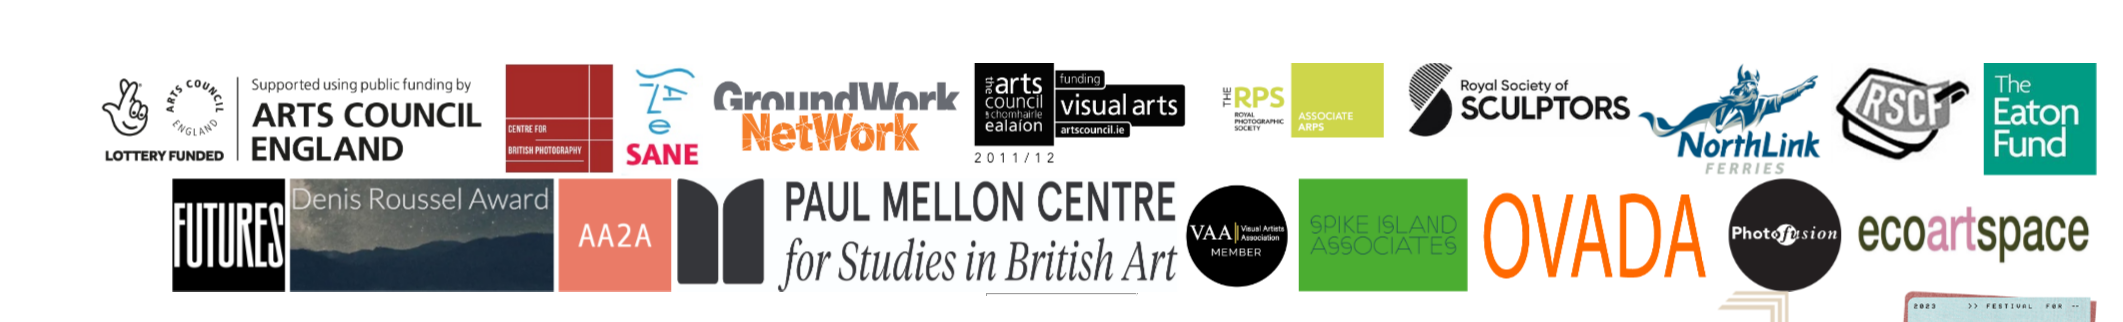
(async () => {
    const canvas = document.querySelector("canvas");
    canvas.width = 2123;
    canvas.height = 322;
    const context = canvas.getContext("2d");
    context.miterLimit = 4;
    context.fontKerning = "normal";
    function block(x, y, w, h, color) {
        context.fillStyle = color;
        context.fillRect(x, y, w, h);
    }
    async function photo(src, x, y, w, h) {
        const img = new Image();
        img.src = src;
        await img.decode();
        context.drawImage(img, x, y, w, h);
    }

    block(0, 0, 2123, 322, "rgb(255, 255, 255)");
    await photo("media/1.png", 101, 76, 381, 86);
    await photo("media/2.png", 504, 63, 111, 112);
    await photo("media/3.png", 621, 64, 82, 112);
    await photo("media/4.png", 713, 80, 247, 72);
    await photo("media/5.png", 973, 63, 213, 101);
    await photo("media/6.png", 1222, 63, 162, 75);
    await photo("media/7.png", 1408, 63, 223, 74);
    await photo("media/8.png", 1637, 63, 184, 112);
    await photo("media/9.png", 1831, 63, 145, 100);
    await photo("media/10.png", 1983, 63, 114, 113);
    await photo("media/11.png", 172, 178, 114, 114);
    await photo("media/12.png", 289, 178, 266, 114);
    await photo("media/13.png", 558, 178, 114, 114);
    await photo("media/14.png", 677, 178, 502, 114);
    await photo("media/15.png", 1185, 184, 103, 104);
    await photo("media/16.png", 1298, 178, 170, 114);
    await photo("media/17.png", 1483, 192, 224, 87);
    await photo("media/18.png", 1728, 178, 114, 114);
    await photo("media/19.png", 1857, 206, 233, 59);
    await photo("media/20.png", 1717, 290, 72, 32);
    await photo("media/21.png", 1902, 290, 195, 32);
    block(986, 293, 152, 1, "rgb(159, 159, 159)");
    block(1136, 293, 1, 3, "rgb(238, 238, 238)");
    block(986, 294, 152, 1, "rgb(238, 238, 238)");
    block(986, 293, 1, 3, "rgb(159, 159, 159)");
})();
